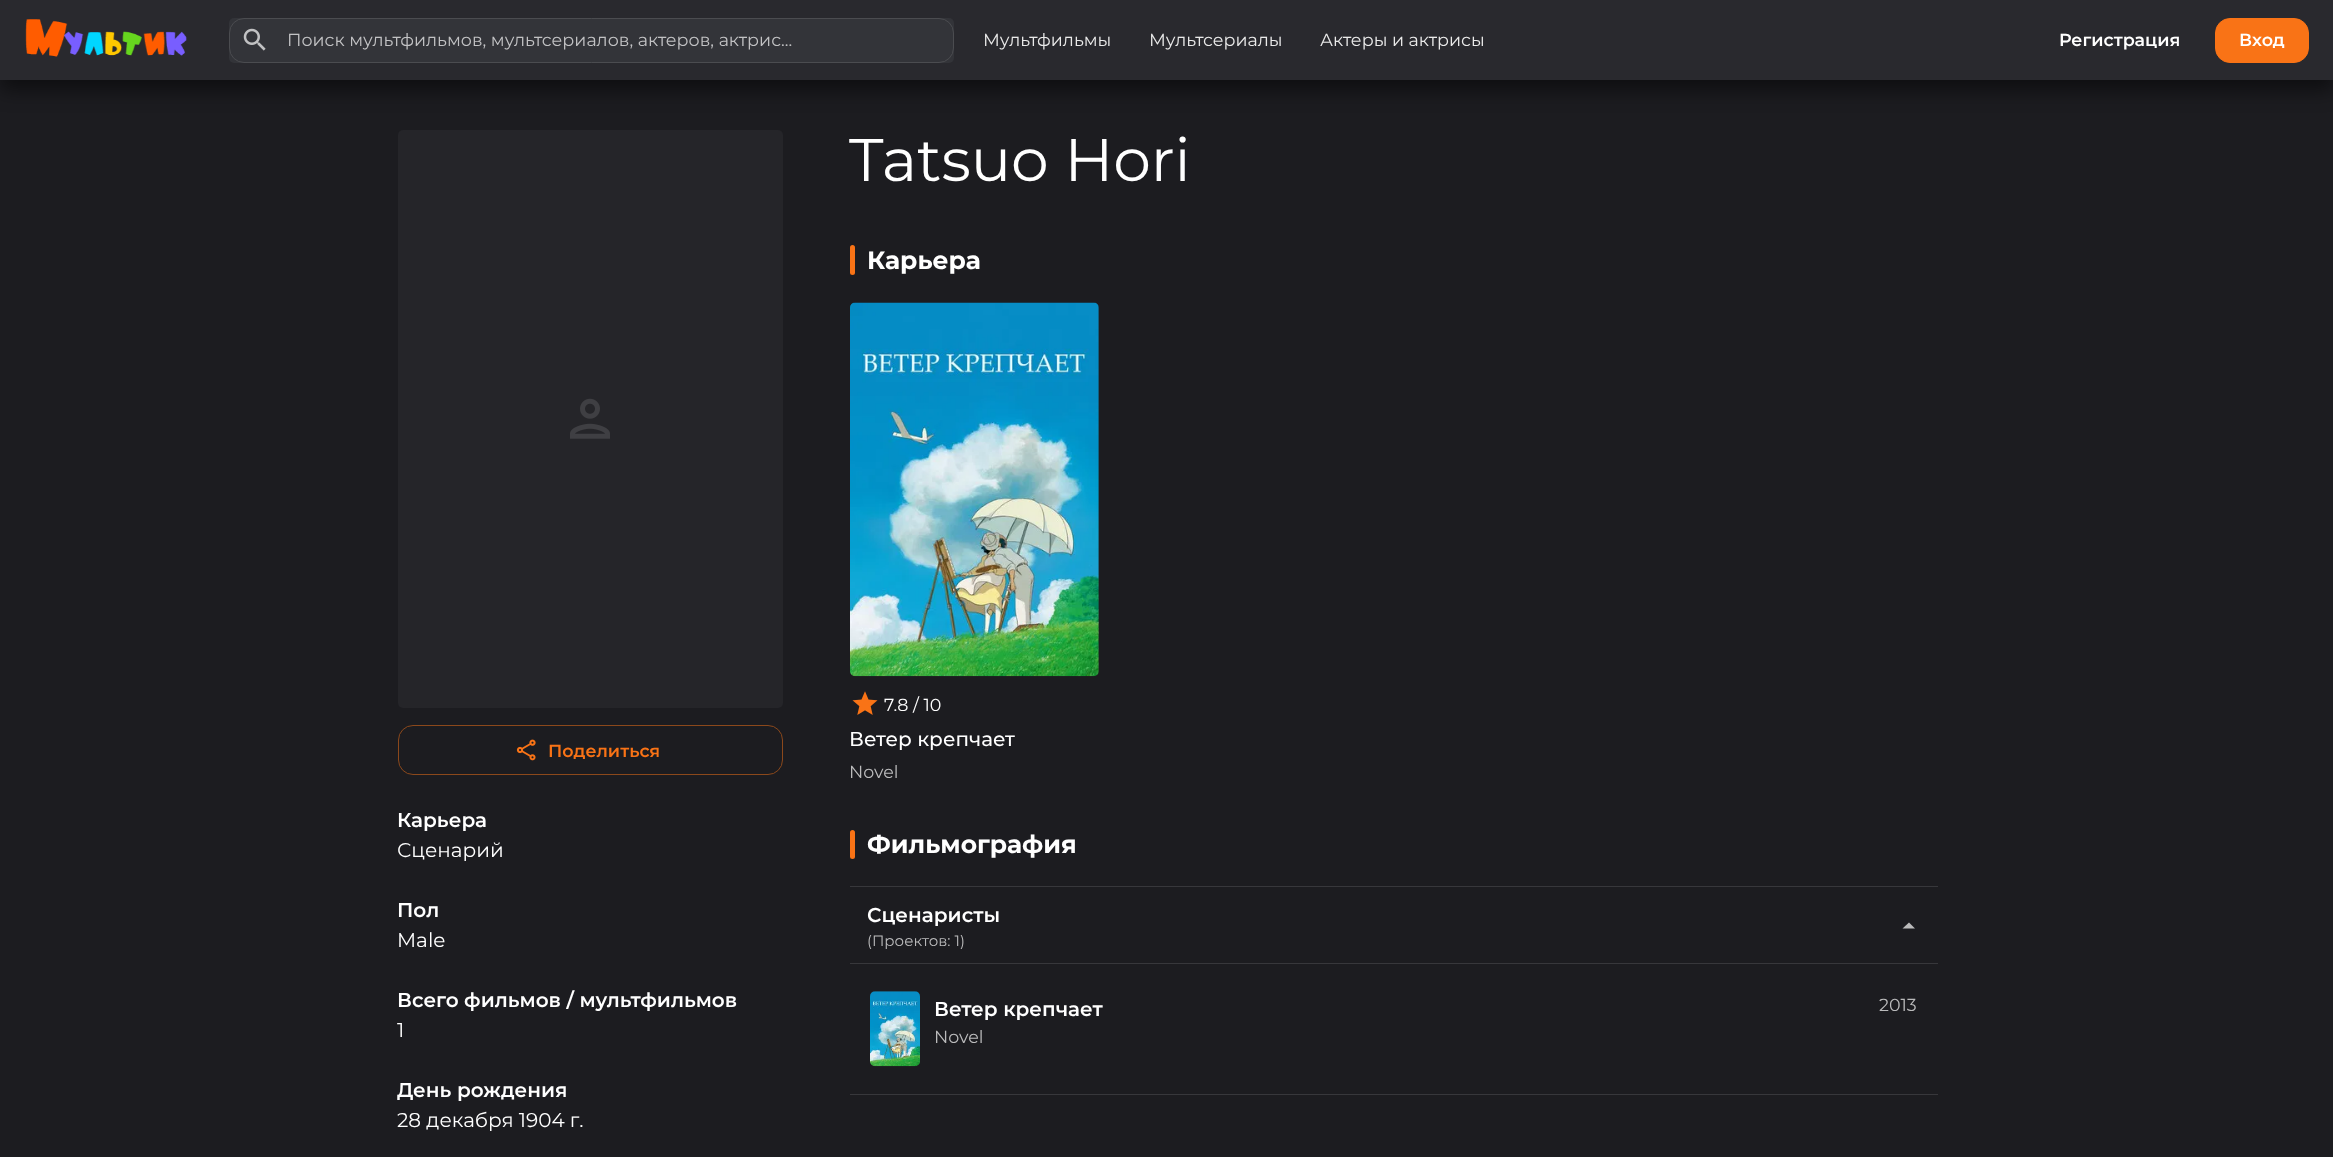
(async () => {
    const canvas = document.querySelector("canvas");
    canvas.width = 2333;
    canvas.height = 1157;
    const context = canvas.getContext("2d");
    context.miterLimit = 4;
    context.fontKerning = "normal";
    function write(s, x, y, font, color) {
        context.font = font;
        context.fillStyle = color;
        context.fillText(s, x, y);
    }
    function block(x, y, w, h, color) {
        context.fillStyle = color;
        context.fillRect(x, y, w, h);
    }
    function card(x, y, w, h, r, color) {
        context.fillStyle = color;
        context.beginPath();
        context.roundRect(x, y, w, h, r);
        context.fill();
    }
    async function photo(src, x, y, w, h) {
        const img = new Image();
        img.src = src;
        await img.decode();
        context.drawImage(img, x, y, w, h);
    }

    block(0, 0, 2333, 1157, "rgb(28, 28, 32)");
    context.fillStyle = "rgba(0, 0, 0, 0.5)";
    context.filter = "blur(10px)";
    context.beginPath();
    context.rect(0, 10, 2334, 80);
    context.fill();
    context.filter = "none";
    block(0, 0, 2333, 80, "rgb(41, 41, 46)");
    await photo("media/1.png", 25, 19, 162, 38);
    card(229, 18, 725, 45, 5, "rgb(51, 52, 57)");
    context.beginPath();
    context.roundRect(229.5, 18.5, 724, 44, 14.5);
    context.strokeStyle = "rgb(75, 76, 80)";
    context.stroke();
    await photo("media/2.png", 243, 28, 23, 23);
    write("Поиск мультфильмов, мультсериалов, актеров, актрис...", 287, 46, "17.5px Montserrat", "rgb(194, 194, 196)");
    write("Мультфильмы", 983, 46, "17.5px Montserrat", "rgb(234, 234, 234)");
    write("Мультсериалы", 1149, 46, "17.5px Montserrat", "rgb(234, 234, 234)");
    write("Актеры и актрисы", 1320, 46, "17.5px Montserrat", "rgb(234, 234, 234)");
    write("Регистрация", 2059, 46, "600 17.5px Montserrat", "rgb(255, 255, 255)");
    context.fillStyle = "rgb(249, 115, 22)";
    context.beginPath();
    context.roundRect(2215.5, 18.5, 93, 44, 14.5);
    context.fill();
    context.strokeStyle = "rgb(249, 115, 22)";
    context.stroke();
    write("Вход", 2239, 46, "600 17.5px Montserrat", "rgb(255, 255, 255)");
    card(398, 130, 385, 578, 5, "rgb(37, 37, 41)");
    await photo("media/3.png", 570, 398, 40, 41);
    context.beginPath();
    context.roundRect(398.5, 725.5, 384, 49, 14.5);
    context.strokeStyle = "rgb(139, 72, 27)";
    context.stroke();
    await photo("media/4.png", 516, 739, 20, 22);
    write("Поделиться", 548, 757, "600 17.5px Montserrat", "rgb(249, 115, 22)");
    write("Карьера", 397, 827, "600 20px Montserrat", "rgb(255, 255, 255)");
    write("Сценарий", 397, 857, "20px Montserrat", "rgb(255, 255, 255)");
    write("Пол", 397, 917, "600 20px Montserrat", "rgb(255, 255, 255)");
    write("Male", 397, 947, "20px Montserrat", "rgb(255, 255, 255)");
    write("Всего фильмов / мультфильмов", 397, 1007, "600 20px Montserrat", "rgb(255, 255, 255)");
    write("1", 397, 1037, "20px Montserrat", "rgb(255, 255, 255)");
    write("День рождения", 397, 1097, "600 20px Montserrat", "rgb(255, 255, 255)");
    write("28 декабря 1904 г.", 397, 1127, "20px Montserrat", "rgb(255, 255, 255)");
    write("Tatsuo Hori", 849, 181, "60px Montserrat", "rgb(255, 255, 255)");
    card(850, 245, 5, 30, 2.5, "rgb(249, 115, 22)");
    write("Карьера", 867, 269, "bold 25px Montserrat", "rgb(255, 255, 255)");
    card(850, 303, 249, 373, 5, "rgb(37, 37, 41)");
    await photo("media/5.png", 850, 302, 249, 375);
    await photo("media/6.png", 852, 691, 26, 24);
    write("7.8 / 10", 884, 711, "17.5px Montserrat", "rgb(255, 255, 255)");
    write("Ветер крепчает", 849, 746, "500 20px Montserrat", "rgb(255, 255, 255)");
    write("Novel", 849, 778, "17.5px Montserrat", "rgb(187, 187, 188)");
    card(850, 830, 5, 29, 2.5, "rgb(249, 115, 22)");
    write("Фильмография", 867, 853, "bold 25px Montserrat", "rgb(255, 255, 255)");
    block(850, 1094, 1088, 1, "rgb(55, 55, 59)");
    block(850, 886, 1088, 1, "rgb(55, 55, 59)");
    block(850, 963, 1088, 1, "rgb(55, 55, 59)");
    write("Сценаристы", 867, 922, "600 20px Montserrat", "rgb(255, 255, 255)");
    write("(Проектов: 1)", 867, 946, "15px Montserrat", "rgb(187, 187, 188)");
    context.beginPath();
    context.moveTo(1915, 928.5);
    context.lineTo(1909, 922.5);
    context.lineTo(1902.5, 928.5);
    context.closePath();
    context.fill();
    card(870, 991, 50, 75, 5, "rgb(37, 37, 41)");
    await photo("media/7.png", 870, 991, 50, 76);
    write("Ветер крепчает", 934, 1016, "600 20px Montserrat", "rgb(255, 255, 255)");
    write("Novel", 934, 1043, "17.5px Montserrat", "rgb(187, 187, 188)");
    write("2013", 1879, 1011, "17.5px Montserrat", "rgb(187, 187, 188)");
})();
